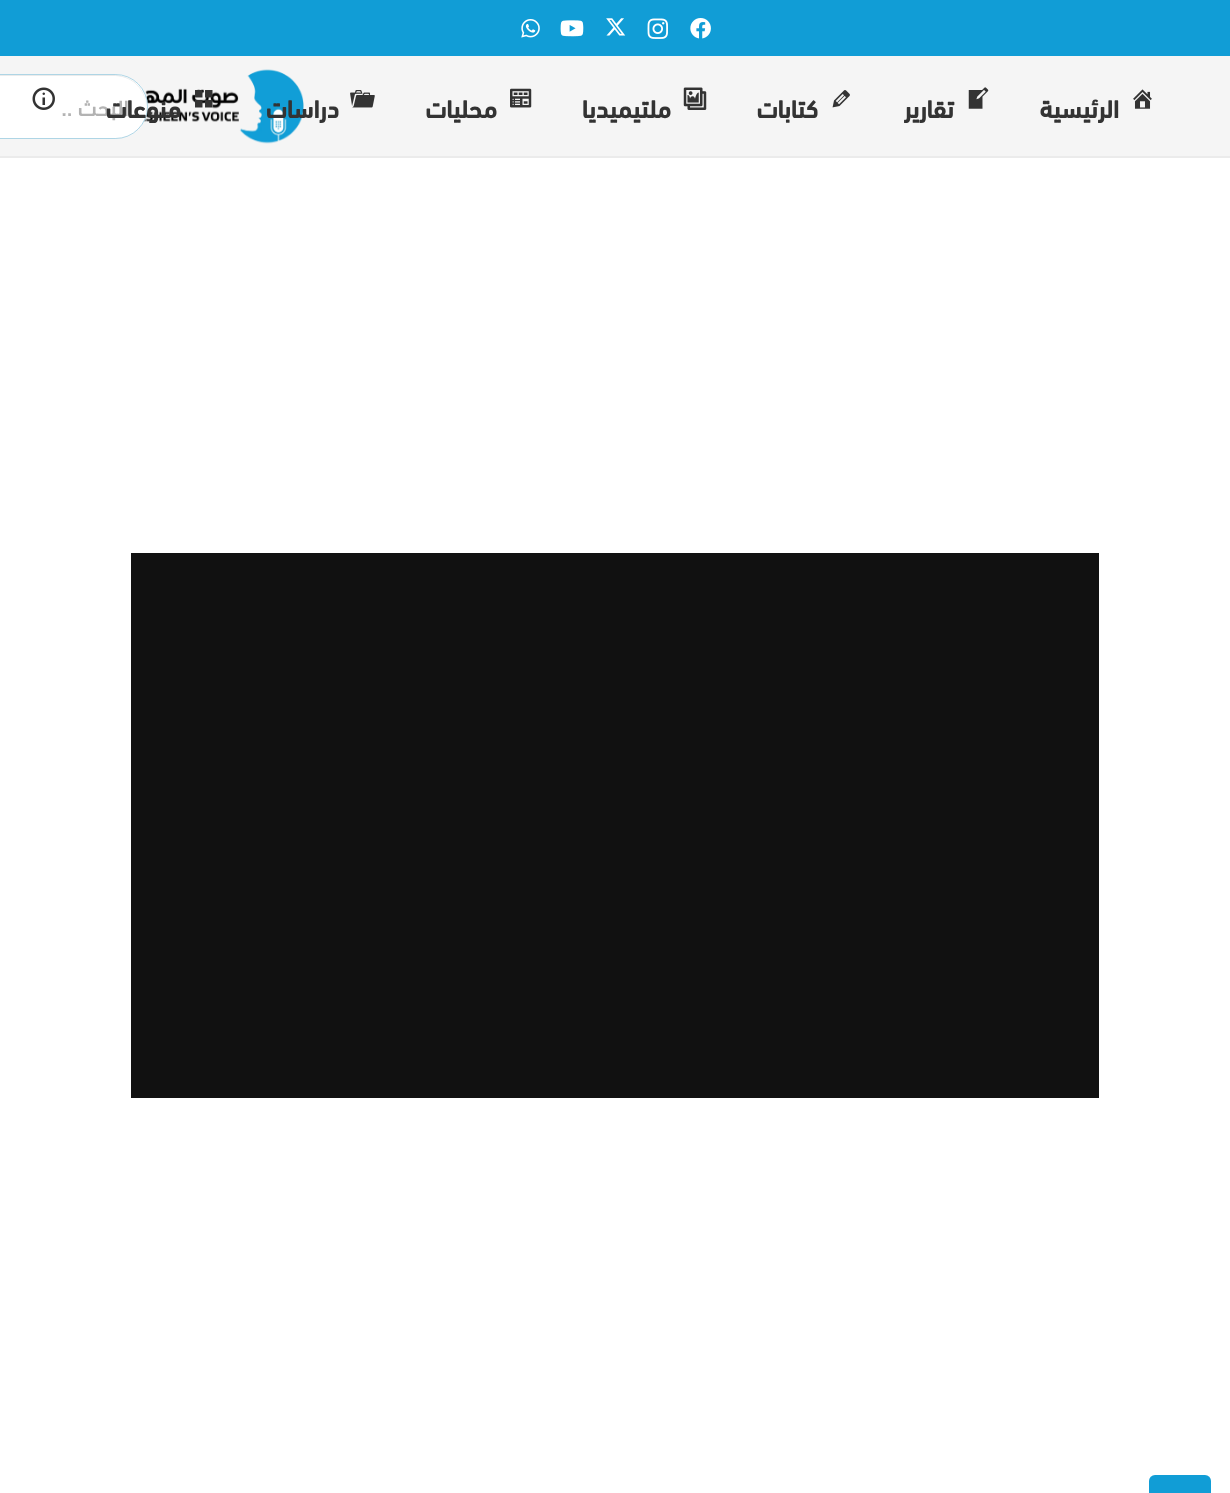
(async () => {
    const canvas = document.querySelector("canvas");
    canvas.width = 1230;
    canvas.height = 1493;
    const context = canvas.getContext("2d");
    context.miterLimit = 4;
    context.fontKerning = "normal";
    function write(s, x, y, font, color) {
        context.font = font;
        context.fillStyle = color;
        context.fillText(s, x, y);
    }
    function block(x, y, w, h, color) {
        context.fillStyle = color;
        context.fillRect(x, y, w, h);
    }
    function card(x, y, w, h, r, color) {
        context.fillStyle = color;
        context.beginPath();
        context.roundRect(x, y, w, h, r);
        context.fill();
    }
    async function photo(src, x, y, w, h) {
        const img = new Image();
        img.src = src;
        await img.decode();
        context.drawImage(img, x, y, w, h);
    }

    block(0, 0, 1230, 1493, "rgb(255, 255, 255)");
    block(0, 0, 1230, 56, "rgb(17, 157, 214)");
    await photo("media/1.png", 690, 18, 21, 21);
    await photo("media/2.png", 647, 18, 21, 21);
    await photo("media/3.png", 606, 18, 20, 18);
    await photo("media/4.png", 560, 20, 24, 17);
    await photo("media/5.png", 521, 19, 19, 19);
    block(0, 156, 1230, 2, "rgb(235, 235, 235)");
    block(0, 56, 1230, 100, "rgb(245, 245, 245)");
    await photo("media/6.png", 144, 69, 160, 75);
    card(-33, 74, 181, 65, 32.5, "rgb(255, 255, 255)");
    context.fillStyle = "rgb(235, 235, 235)";
    context.beginPath();
    context.moveTo(-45, 76);
    context.lineTo(115, 76);
    context.bezierCurveTo(132, 76, 146, 90, 146, 107);
    context.lineTo(146, 106);
    context.bezierCurveTo(146, 89, 132, 75, 114, 75);
    context.lineTo(-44, 75);
    context.bezierCurveTo(-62, 75, -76, 89, -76, 106);
    context.lineTo(-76, 107);
    context.bezierCurveTo(-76, 90, -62, 76, -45, 76);
    context.closePath();
    context.fill();
    context.beginPath();
    context.roundRect(-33.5, 74.5, 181, 64, 32);
    context.strokeStyle = "rgba(2, 123, 173, 0.32)";
    context.stroke();
    context.direction = "rtl";
    write("البحث ..", 129, 116, "500 22.5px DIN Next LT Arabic", "rgb(179, 179, 179)");
    await photo("media/7.png", 1133, 89, 19, 20);
    write("الرئيسية", 1119, 118, "bold 25px DIN Next LT Arabic", "rgb(51, 51, 51)");
    await photo("media/8.png", 968, 87, 21, 22);
    write("تقارير", 954, 118, "bold 25px DIN Next LT Arabic", "rgb(51, 51, 51)");
    await photo("media/9.png", 832, 90, 18, 18);
    write("كتابات", 818, 118, "bold 25px DIN Next LT Arabic", "rgb(51, 51, 51)");
    await photo("media/10.png", 683, 87, 24, 23);
    write("ملتيميديا", 671, 118, "bold 25px DIN Next LT Arabic", "rgb(51, 51, 51)");
    await photo("media/11.png", 510, 88, 22, 20);
    write("محليات", 497, 118, "bold 25px DIN Next LT Arabic", "rgb(51, 51, 51)");
    await photo("media/12.png", 350, 90, 25, 18);
    write("دراسات", 339, 118, "bold 25px DIN Next LT Arabic", "rgb(51, 51, 51)");
    await photo("media/13.png", 195, 90, 18, 18);
    write("منوعات", 181, 118, "bold 25px DIN Next LT Arabic", "rgb(51, 51, 51)");
    await photo("media/14.png", 32, 87, 23, 23);
    block(131, 553, 968, 545, "rgb(17, 17, 17)");
    card(1149, 1475, 62, 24, 6, "rgb(17, 157, 214)");
})();
